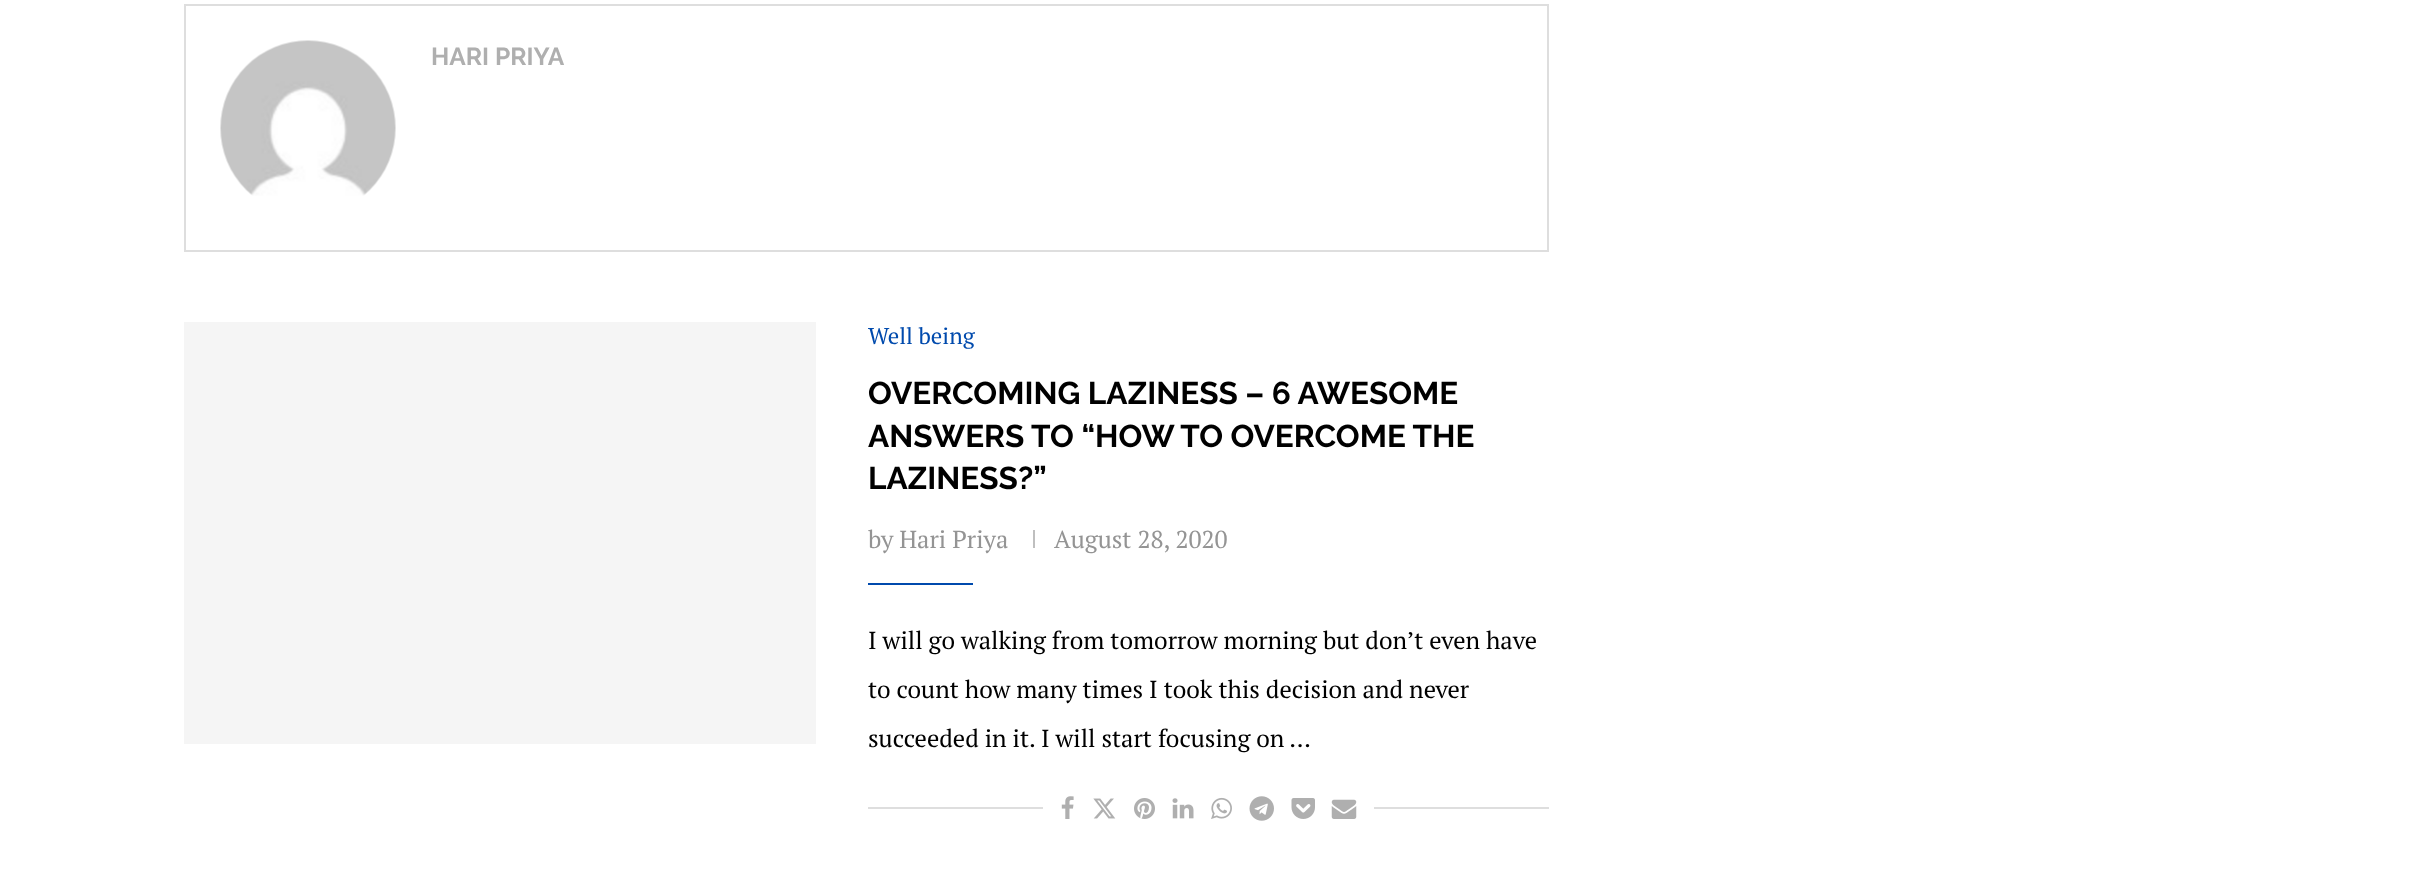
(async () => {
    const canvas = document.querySelector("canvas");
    canvas.width = 2414;
    canvas.height = 869;
    const context = canvas.getContext("2d");
    context.miterLimit = 4;
    context.fontKerning = "normal";
    function write(s, x, y, font, color) {
        context.font = font;
        context.fillStyle = color;
        context.fillText(s, x, y);
    }
    function block(x, y, w, h, color) {
        context.fillStyle = color;
        context.fillRect(x, y, w, h);
    }
    async function photo(src, x, y, w, h) {
        const img = new Image();
        img.src = src;
        await img.decode();
        context.drawImage(img, x, y, w, h);
    }

    block(0, 0, 2414, 869, "rgb(255, 255, 255)");
    context.strokeStyle = "rgb(222, 222, 222)";
    context.lineWidth = 2;
    context.strokeRect(185, 5, 1363, 246);
    await photo("media/1.png", 220, 40, 176, 156);
    write("HARI PRIYA", 431, 65, "bold 24.5px Raleway", "rgb(175, 175, 175)");
    block(184, 322, 632, 422, "rgb(245, 245, 245)");
    write("Well being", 868, 344, "22.75px PT Serif", "rgb(0, 74, 173)");
    write("OVERCOMING LAZINESS – 6 AWESOME", 868, 404, "bold 31.5px Raleway", "rgb(0, 0, 0)");
    write("ANSWERS TO “HOW TO OVERCOME THE", 868, 447, "bold 31.5px Raleway", "rgb(0, 0, 0)");
    write("LAZINESS?”", 868, 489, "bold 31.5px Raleway", "rgb(0, 0, 0)");
    write("by Hari Priya", 868, 548, "24.5px PT Serif", "rgb(148, 148, 148)");
    block(1033, 530, 2, 18, "rgb(191, 191, 191)");
    write("August 28, 2020", 1054, 548, "24.5px PT Serif", "rgb(148, 148, 148)");
    block(868, 583, 105, 2, "rgb(0, 74, 173)");
    write("I will go walking from tomorrow morning but don’t even have", 868, 649, "24.5px PT Serif", "rgb(0, 0, 0)");
    write("to count how many times I took this decision and never", 868, 698, "24.5px PT Serif", "rgb(0, 0, 0)");
    write("succeeded in it. I will start focusing on …", 868, 747, "24.5px PT Serif", "rgb(0, 0, 0)");
    block(868, 807, 681, 2, "rgb(222, 222, 222)");
    block(1043, 807, 331, 2, "rgb(255, 255, 255)");
    await photo("media/2.png", 1061, 796, 13, 23);
    await photo("media/3.png", 1093, 798, 23, 21);
    await photo("media/4.png", 1134, 798, 21, 21);
    await photo("media/5.png", 1172, 798, 22, 21);
    await photo("media/6.png", 1211, 797, 21, 22);
    await photo("media/7.png", 1249, 796, 25, 25);
    await photo("media/8.png", 1291, 798, 24, 21);
    await photo("media/9.png", 1331, 799, 26, 20);
})();
